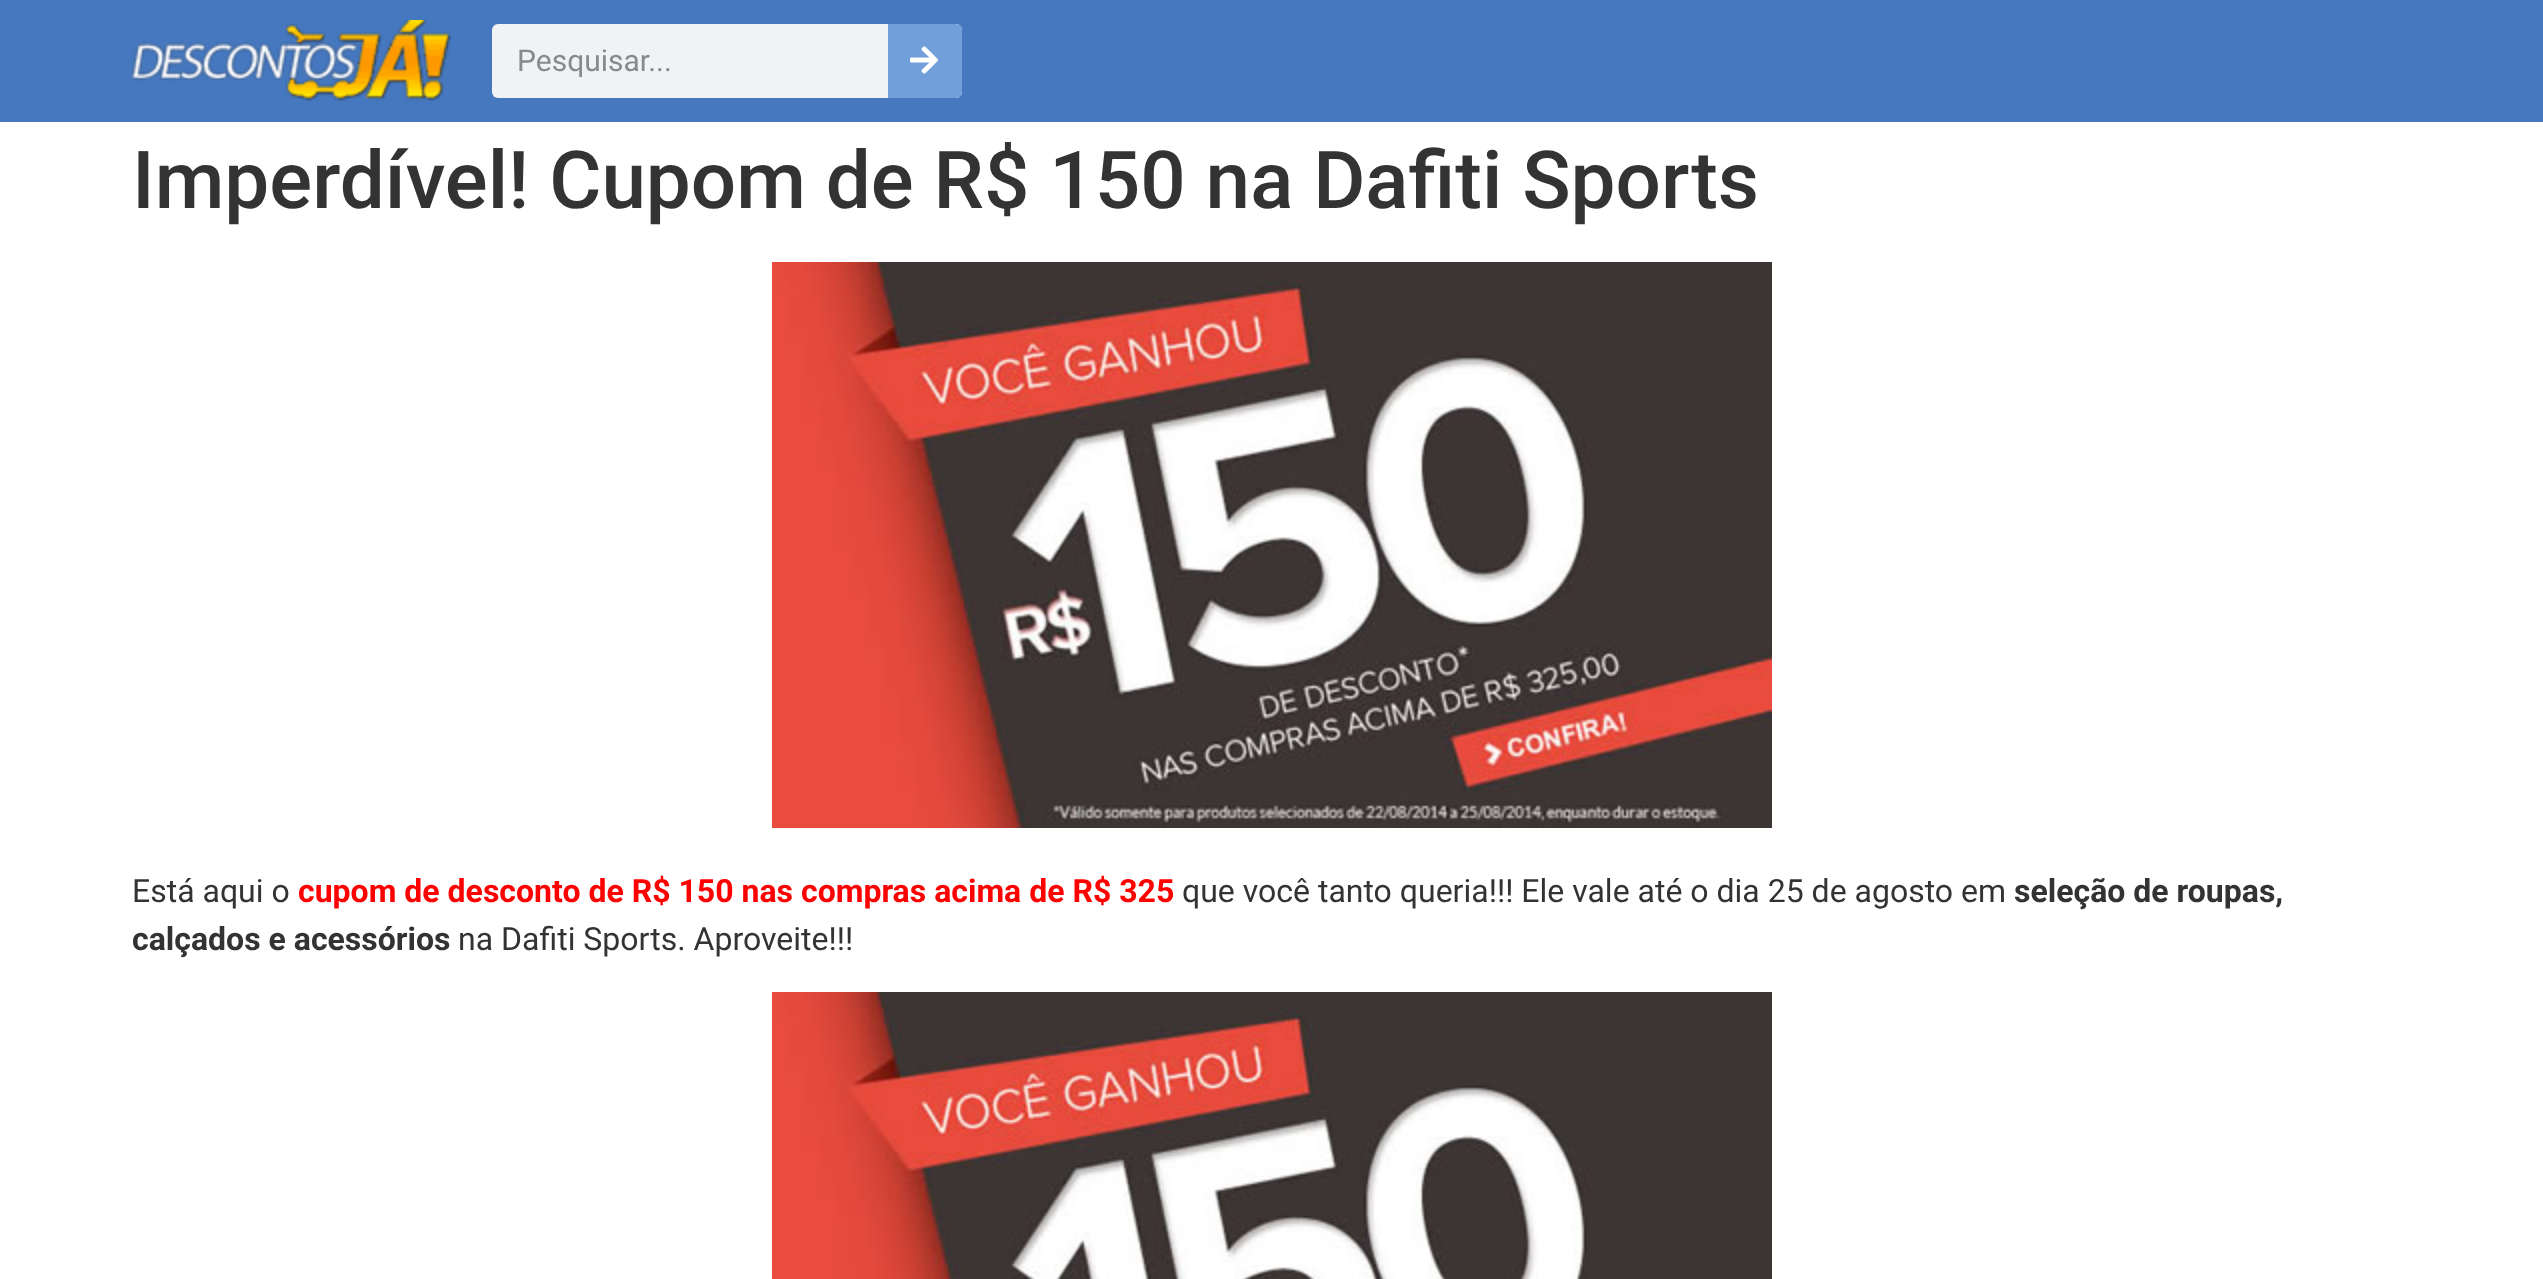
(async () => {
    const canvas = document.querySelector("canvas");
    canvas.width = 2543;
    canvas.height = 1279;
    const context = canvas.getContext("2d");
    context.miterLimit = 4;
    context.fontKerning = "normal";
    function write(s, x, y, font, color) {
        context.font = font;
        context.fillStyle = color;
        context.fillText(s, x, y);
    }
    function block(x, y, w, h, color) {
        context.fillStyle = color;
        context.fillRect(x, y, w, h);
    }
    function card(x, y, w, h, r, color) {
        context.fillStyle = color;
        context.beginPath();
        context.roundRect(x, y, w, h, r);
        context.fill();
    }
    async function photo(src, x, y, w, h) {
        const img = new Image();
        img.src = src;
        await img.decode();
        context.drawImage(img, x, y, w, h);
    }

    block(0, 0, 2543, 1279, "rgb(255, 255, 255)");
    block(0, 0, 2543, 122, "rgb(70, 120, 191)");
    await photo("media/1.png", 132, 20, 320, 81);
    card(492, 24, 470, 74, 6, "rgb(241, 242, 243)");
    write("Pesquisar...", 517, 71, "30px Roboto", "rgb(134, 138, 142)");
    context.fillStyle = "rgb(113, 159, 218)";
    context.beginPath();
    context.roundRect(888, 24, 74, 74, [0, 6, 6, 0]);
    context.fill();
    await photo("media/2.png", 910, 46, 28, 28);
    write("Imperdível! Cupom de R$ 150 na Dafiti Sports", 132, 208, "500 80px Roboto", "rgb(51, 51, 51)");
    await photo("media/3.png", 772, 262, 1000, 566);
    write("Está aqui o", 132, 902, "32px Roboto", "rgb(51, 51, 51)");
    write("cupom de desconto de R$ 150 nas compras acima de R$ 325", 298, 902, "bold 32px Roboto", "rgb(255, 0, 0)");
    write("que você tanto queria!!! Ele vale até o dia 25 de agosto em", 1182, 902, "32px Roboto", "rgb(51, 51, 51)");
    write("seleção de roupas,", 2014, 902, "bold 32px Roboto", "rgb(51, 51, 51)");
    write("calçados e acessórios", 132, 950, "bold 32px Roboto", "rgb(51, 51, 51)");
    write("na Dafiti Sports. Aproveite!!!", 458, 950, "32px Roboto", "rgb(51, 51, 51)");
    await photo("media/4.png", 772, 992, 1000, 287);
})();
